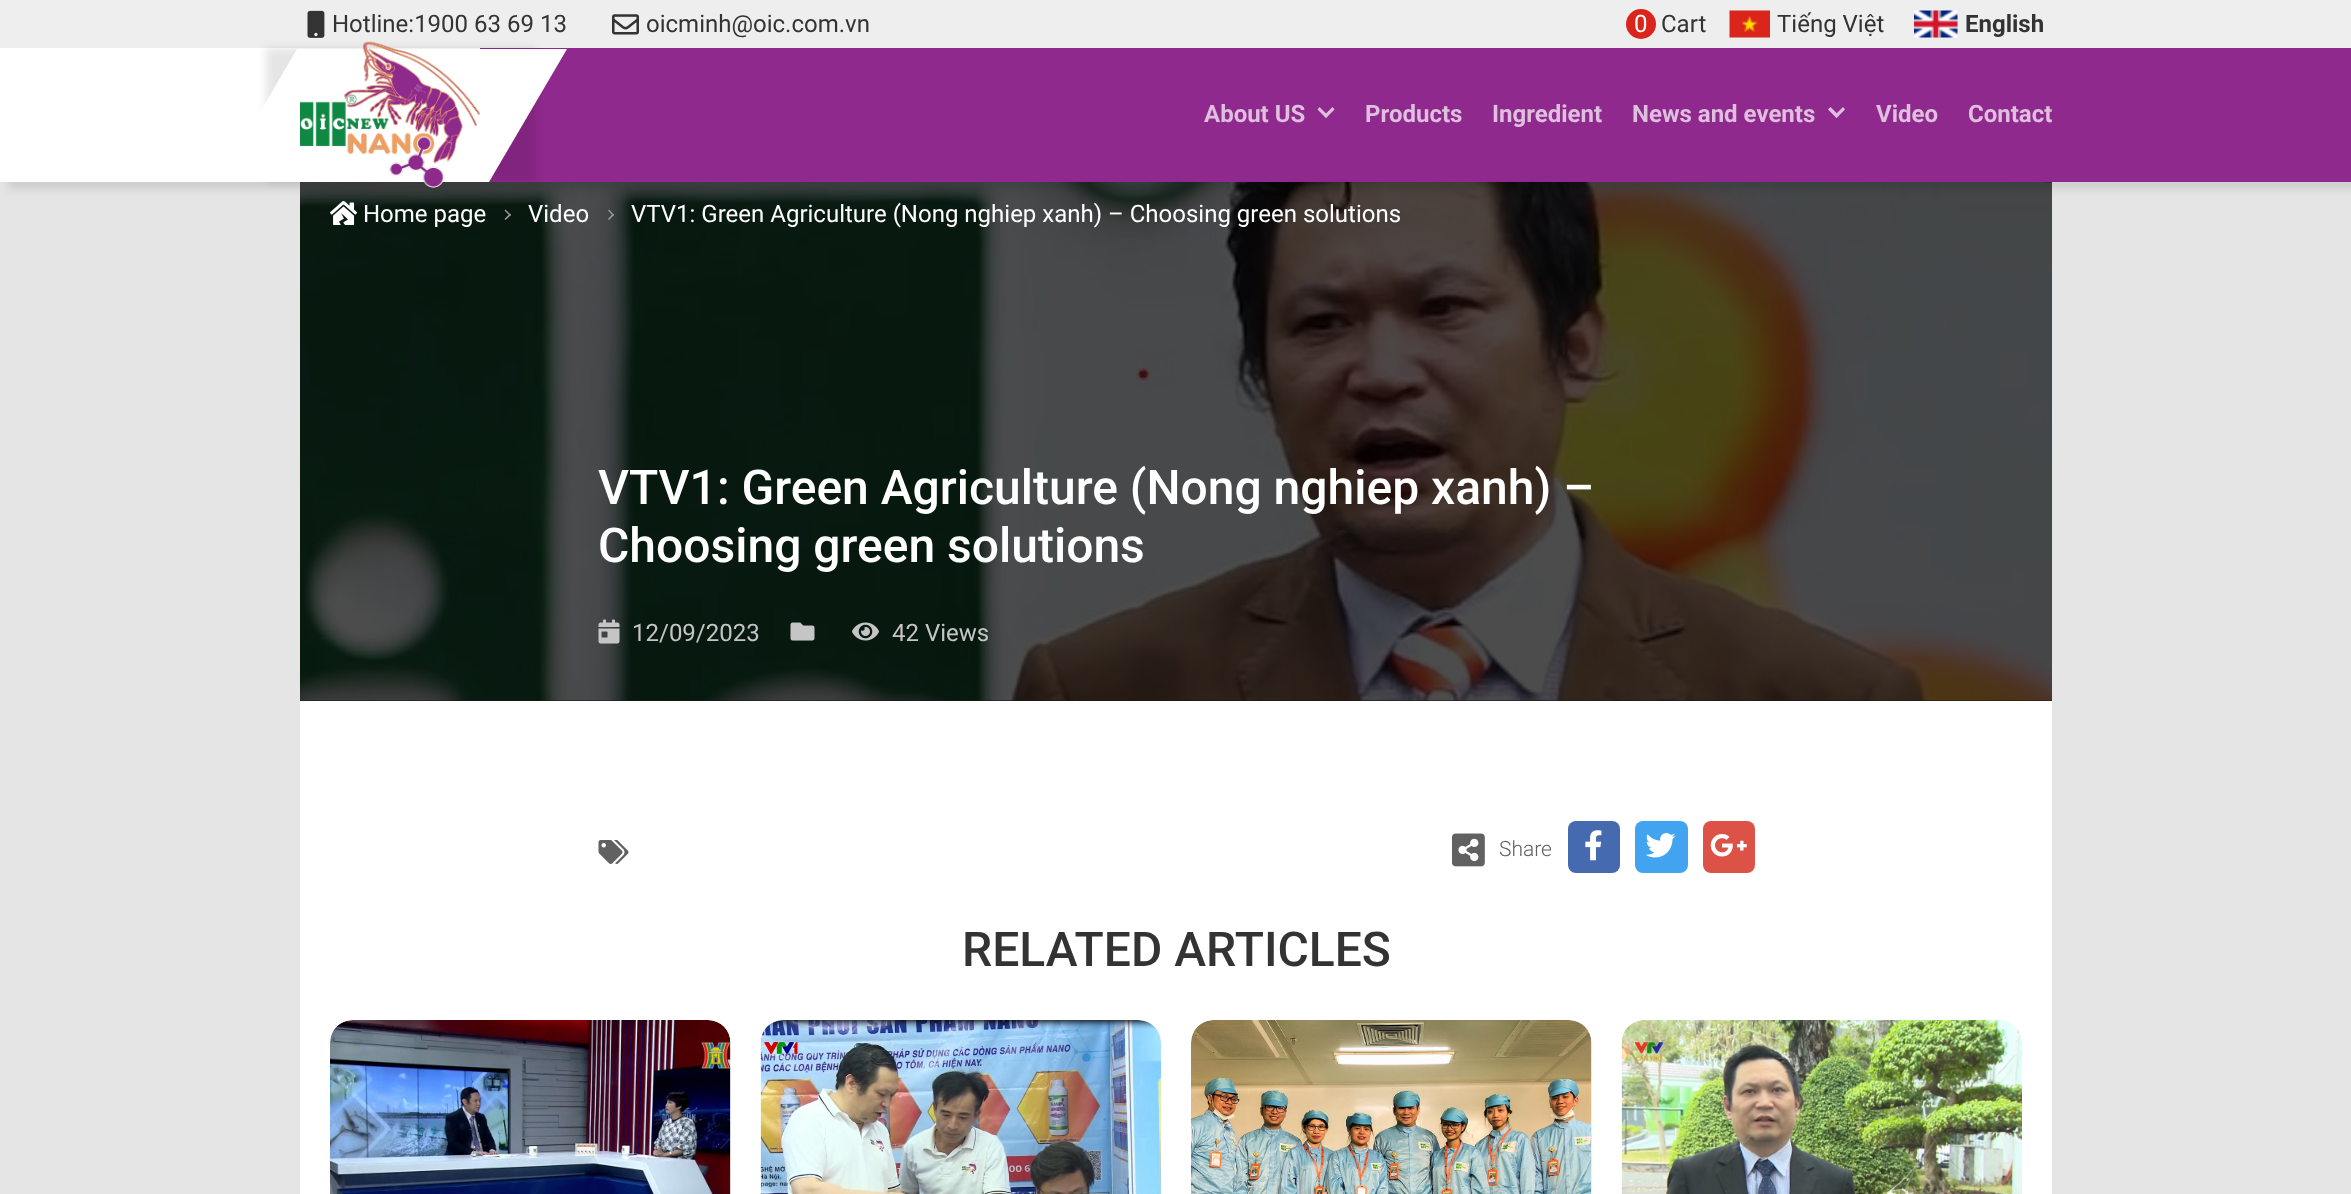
(async () => {
    const canvas = document.querySelector("canvas");
    canvas.width = 2351;
    canvas.height = 1194;
    const context = canvas.getContext("2d");
    context.miterLimit = 4;
    context.fontKerning = "normal";
    function write(s, x, y, font, color) {
        context.font = font;
        context.fillStyle = color;
        context.fillText(s, x, y);
    }
    function block(x, y, w, h, color) {
        context.fillStyle = color;
        context.fillRect(x, y, w, h);
    }
    function card(x, y, w, h, r, color) {
        context.fillStyle = color;
        context.beginPath();
        context.roundRect(x, y, w, h, r);
        context.fill();
    }
    async function photo(src, x, y, w, h) {
        const img = new Image();
        img.src = src;
        await img.decode();
        context.drawImage(img, x, y, w, h);
    }

    block(0, 0, 2351, 1194, "rgb(229, 229, 229)");
    block(0, 0, 2351, 48, "rgb(238, 238, 238)");
    await photo("media/1.png", 307, 10, 18, 28);
    write("Hotline:1900 63 69 13", 332, 32, "24px Roboto", "rgb(51, 51, 51)");
    await photo("media/2.png", 612, 14, 27, 21);
    write("oicminh@oic.com.vn", 646, 32, "24px Roboto", "rgb(51, 51, 51)");
    context.fillStyle = "rgb(218, 37, 29)";
    context.beginPath();
    context.arc(1641, 24, 15, 0, Math.PI * 2);
    context.fill();
    write("0", 1634, 32, "24px Roboto", "rgb(255, 255, 255)");
    write("Cart", 1661, 32, "24px Roboto", "rgb(51, 51, 51)");
    await photo("media/3.png", 1729, 10, 41, 28);
    write("Tiếng Việt", 1777, 32, "24px Roboto", "rgb(51, 51, 51)");
    await photo("media/4.png", 1914, 10, 44, 28);
    write("English", 1965, 32, "bold 24px Roboto", "rgb(51, 51, 51)");
    block(300, 700, 1752, 1, "rgb(23, 23, 23)");
    await photo("media/6.png", 300, 182, 1752, 519);
    await photo("media/7.png", 330, 201, 28, 24);
    context.fillStyle = "rgba(0, 0, 0, 0.1)";
    context.filter = "blur(4px)";
    context.beginPath();
    context.rect(8, 56, 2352, 133);
    context.fill();
    context.filter = "none";
    block(480, 48, 1871, 134, "rgb(144, 41, 142)");
    block(315, 48, 165, 1, "rgb(255, 255, 255)");
    block(0, 48, 315, 134, "rgb(255, 255, 255)");
    context.fillStyle = "rgba(0, 0, 0, 0.1)";
    context.filter = "blur(4px)";
    context.beginPath();
    context.rect(266, 48, 270, 134);
    context.fill();
    context.filter = "none";
    context.fillStyle = "rgb(255, 255, 255)";
    context.beginPath();
    context.moveTo(297, 49);
    context.lineTo(567, 49);
    context.lineTo(489, 182);
    context.lineTo(219, 182);
    context.closePath();
    context.fill();
    await photo("media/5.png", 300, 41, 180, 147);
    write("About US", 1204, 122, "bold 24px Roboto", "rgb(222, 191, 221)");
    context.beginPath();
    context.moveTo(1332.5, 107);
    context.lineTo(1334.5, 109.5);
    context.lineTo(1326, 118);
    context.lineTo(1324, 115.5);
    context.closePath();
    context.fill();
    context.beginPath();
    context.moveTo(1319.5, 107);
    context.lineTo(1328, 115.5);
    context.lineTo(1326, 118);
    context.lineTo(1317.5, 109.5);
    context.closePath();
    context.fill();
    write("Products", 1365, 122, "bold 24px Roboto", "rgb(222, 191, 221)");
    write("Ingredient", 1492, 122, "bold 24px Roboto", "rgb(222, 191, 221)");
    write("News and events", 1632, 122, "bold 24px Roboto", "rgb(222, 191, 221)");
    context.beginPath();
    context.moveTo(1843, 107);
    context.lineTo(1845, 109.5);
    context.lineTo(1836.5, 118);
    context.lineTo(1834.5, 115.5);
    context.closePath();
    context.fill();
    context.beginPath();
    context.moveTo(1830.5, 107);
    context.lineTo(1839, 115.5);
    context.lineTo(1836.5, 118);
    context.lineTo(1828, 109.5);
    context.closePath();
    context.fill();
    write("Video", 1876, 122, "bold 24px Roboto", "rgb(222, 191, 221)");
    write("Contact", 1968, 122, "bold 24px Roboto", "rgb(222, 191, 221)");
    block(300, 701, 1752, 493, "rgb(255, 255, 255)");
    write("Home page", 363, 222, "24px Roboto", "rgb(255, 255, 255)");
    context.fillStyle = "rgb(154, 154, 154)";
    context.beginPath();
    context.moveTo(504.5, 210.5);
    context.lineTo(505.5, 209.5);
    context.lineTo(511, 215);
    context.lineTo(510, 216);
    context.closePath();
    context.fill();
    context.beginPath();
    context.moveTo(504.5, 219);
    context.lineTo(510, 213.5);
    context.lineTo(511, 215);
    context.lineTo(505.5, 220);
    context.closePath();
    context.fill();
    write("Video", 528, 222, "24px Roboto", "rgb(255, 255, 255)");
    context.fillStyle = "rgb(154, 154, 154)";
    context.beginPath();
    context.moveTo(608, 210.5);
    context.lineTo(609, 209.5);
    context.lineTo(614, 215);
    context.lineTo(613, 216);
    context.closePath();
    context.fill();
    context.beginPath();
    context.moveTo(608, 219);
    context.lineTo(613, 213.5);
    context.lineTo(614, 215);
    context.lineTo(609, 220);
    context.closePath();
    context.fill();
    write("VTV1: Green Agriculture (Nong nghiep xanh) – Choosing green solutions", 631, 222, "24px Roboto", "rgb(255, 255, 255)");
    write("VTV1: Green Agriculture (Nong nghiep xanh) –", 598, 504, "500 48px Roboto", "rgb(255, 255, 255)");
    write("Choosing green solutions", 598, 562, "500 48px Roboto", "rgb(255, 255, 255)");
    await photo("media/8.png", 598, 619, 22, 25);
    write("12/09/2023", 632, 641, "24px Roboto", "rgb(197, 197, 197)");
    await photo("media/9.png", 790, 622, 25, 19);
    await photo("media/10.png", 852, 622, 27, 19);
    write("42 Views", 892, 641, "24px Roboto", "rgb(197, 197, 197)");
    await photo("media/11.png", 598, 840, 31, 24);
    await photo("media/12.png", 1452, 833, 33, 34);
    write("Share", 1499, 856, "300 21px Roboto", "rgb(97, 97, 97)");
    card(1568, 821, 52, 52, 8, "rgb(69, 106, 176)");
    await photo("media/13.png", 1585, 830, 17, 31);
    card(1635, 821, 53, 52, 8, "rgb(66, 164, 241)");
    await photo("media/14.png", 1645, 833, 31, 25);
    card(1703, 821, 52, 52, 8, "rgb(220, 82, 70)");
    await photo("media/15.png", 1710, 834, 37, 23);
    write("RELATED ARTICLES", 962, 966, "500 48px Roboto", "rgb(51, 51, 51)");
    card(330, 1020, 401, 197, 23, "rgb(245, 245, 245)");
    await photo("media/16.png", 330, 1020, 401, 174);
    card(761, 1020, 400, 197, 23, "rgb(245, 245, 245)");
    await photo("media/17.png", 760, 1020, 401, 174);
    card(1191, 1020, 401, 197, 23, "rgb(245, 245, 245)");
    await photo("media/18.png", 1191, 1020, 401, 174);
    card(1622, 1020, 400, 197, 23, "rgb(245, 245, 245)");
    await photo("media/19.png", 1621, 1020, 401, 174);
})();
